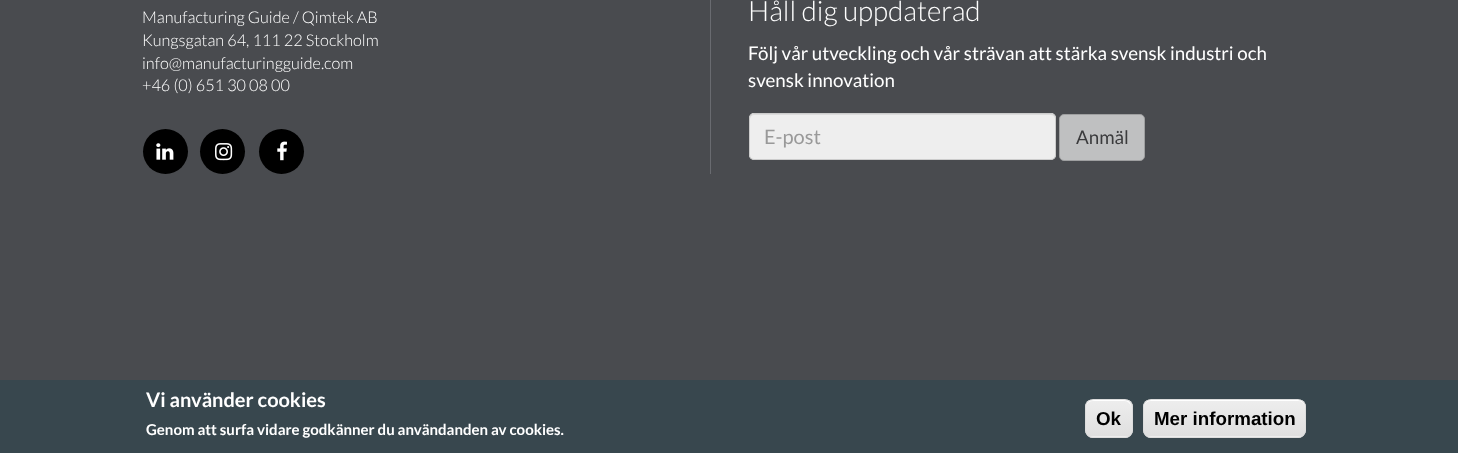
(async () => {
    const canvas = document.querySelector("canvas");
    canvas.width = 1458;
    canvas.height = 453;
    const context = canvas.getContext("2d");
    context.miterLimit = 4;
    context.fontKerning = "normal";
    function write(s, x, y, font, color) {
        context.font = font;
        context.fillStyle = color;
        context.fillText(s, x, y);
    }
    function block(x, y, w, h, color) {
        context.fillStyle = color;
        context.fillRect(x, y, w, h);
    }
    function card(x, y, w, h, r, color) {
        context.fillStyle = color;
        context.beginPath();
        context.roundRect(x, y, w, h, r);
        context.fill();
    }
    async function photo(src, x, y, w, h) {
        const img = new Image();
        img.src = src;
        await img.decode();
        context.drawImage(img, x, y, w, h);
    }
    let gradient;

    block(0, 0, 1458, 453, "rgb(73, 75, 79)");
    block(710, 0, 1, 174, "rgb(105, 107, 112)");
    write("Manufacturing Guide / Qimtek AB", 142, 23, "300 16.25px Lato", "rgb(255, 255, 255)");
    write("Kungsgatan 64, 111 22 Stockholm", 142, 46, "300 16.25px Lato", "rgb(255, 255, 255)");
    write("info@manufacturingguide.com", 142, 69, "300 16.25px Lato", "rgb(255, 255, 255)");
    write("+46 (0) 651 30 08 00", 142, 91, "300 16.25px Lato", "rgb(255, 255, 255)");
    context.fillStyle = "rgb(0, 0, 0)";
    context.beginPath();
    context.arc(165.5, 151.5, 22.5, 0, Math.PI * 2);
    context.fill();
    await photo("media/1.png", 156, 143, 18, 17);
    context.beginPath();
    context.arc(222.5, 151.5, 22.5, 0, Math.PI * 2);
    context.fill();
    await photo("media/2.png", 215, 143, 18, 18);
    context.beginPath();
    context.arc(281.5, 151.5, 22.5, 0, Math.PI * 2);
    context.fill();
    await photo("media/3.png", 277, 141, 10, 20);
    write("Håll dig uppdaterad", 748, 21, "300 28px Lato", "rgb(255, 255, 255)");
    write("Följ vår utveckling och vår strävan att stärka svensk industri och", 748, 60, "18.75px Lato", "rgb(255, 255, 255)");
    write("svensk innovation", 748, 87, "18.75px Lato", "rgb(255, 255, 255)");
    card(749, 113, 307, 47, 5, "rgb(238, 238, 238)");
    context.fillStyle = "rgb(220, 220, 220)";
    context.beginPath();
    context.moveTo(754, 115);
    context.lineTo(1051, 115);
    context.bezierCurveTo(1053, 115, 1055, 117, 1055, 119);
    context.bezierCurveTo(1055, 116, 1054, 114, 1051, 114);
    context.lineTo(754, 114);
    context.lineTo(751, 115);
    context.bezierCurveTo(750, 116, 750, 118, 750, 119);
    context.bezierCurveTo(750, 117, 752, 115, 754, 115);
    context.closePath();
    context.fill();
    context.beginPath();
    context.roundRect(749.5, 113.5, 306, 46, 4.5);
    context.strokeStyle = "rgb(204, 204, 204)";
    context.stroke();
    write("E-post", 764, 144, "20px Lato", "rgb(153, 153, 153)");
    context.fillStyle = "rgb(191, 192, 193)";
    context.beginPath();
    context.roundRect(1059.5, 114.5, 85, 46, 4.5);
    context.fill();
    context.strokeStyle = "rgb(158, 159, 160)";
    context.stroke();
    write("Anmäl", 1076, 144, "18.75px Lato", "rgb(59, 59, 61)");
    block(0, 380, 1458, 73, "rgb(56, 71, 78)");
    write("Vi använder cookies", 146, 407, "bold 20px Lato", "rgb(255, 255, 255)");
    write("Genom att surfa vidare godkänner du användanden av cookies.", 146, 435, "bold 15px Lato", "rgb(255, 255, 255)");
    context.save();
    context.beginPath();
    context.roundRect(1085, 399, 48, 39, 8);
    context.clip();
    gradient = context.createLinearGradient(1086, 400, 1086, 436);
    gradient.addColorStop(0.05, "rgb(237, 237, 237)");
    gradient.addColorStop(1, "rgb(223, 223, 223)");
    context.fillStyle = gradient;
    context.fillRect(1085, 400, 48, 36);
    gradient = context.createLinearGradient(1086, 436, 1086, 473);
    gradient.addColorStop(0.05, "rgb(237, 237, 237)");
    gradient.addColorStop(1, "rgb(223, 223, 223)");
    context.fillStyle = gradient;
    context.fillRect(1085, 436, 48, 2);
    context.restore();
    context.beginPath();
    context.moveTo(1092, 401);
    context.lineTo(1125, 401);
    context.bezierCurveTo(1128, 401, 1131, 404, 1131, 408);
    context.bezierCurveTo(1131, 400, 1127, 400, 1120, 400);
    context.lineTo(1098, 400);
    context.bezierCurveTo(1090, 400, 1086, 400, 1086, 408);
    context.bezierCurveTo(1086, 404, 1089, 401, 1092, 401);
    context.closePath();
    context.fill();
    context.beginPath();
    context.roundRect(1085.5, 399.5, 47, 38, 7.5);
    context.strokeStyle = "rgb(220, 220, 220)";
    context.stroke();
    write("Ok", 1096, 425, "bold 18.75px Liberation Sans", "rgb(0, 0, 0)");
    context.save();
    context.beginPath();
    context.roundRect(1143, 399, 163, 39, 8);
    context.clip();
    gradient = context.createLinearGradient(1144, 400, 1144, 436);
    gradient.addColorStop(0.05, "rgb(237, 237, 237)");
    gradient.addColorStop(1, "rgb(223, 223, 223)");
    context.fillStyle = gradient;
    context.fillRect(1143, 400, 163, 36);
    gradient = context.createLinearGradient(1144, 436, 1144, 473);
    gradient.addColorStop(0.05, "rgb(237, 237, 237)");
    gradient.addColorStop(1, "rgb(223, 223, 223)");
    context.fillStyle = gradient;
    context.fillRect(1143, 436, 163, 2);
    context.restore();
    context.fillStyle = "rgb(255, 255, 255)";
    context.beginPath();
    context.moveTo(1150, 401);
    context.lineTo(1299, 401);
    context.bezierCurveTo(1302, 401, 1305, 404, 1305, 408);
    context.lineTo(1305, 406);
    context.bezierCurveTo(1305, 403, 1302, 400, 1299, 400);
    context.lineTo(1150, 400);
    context.bezierCurveTo(1147, 400, 1144, 403, 1144, 406);
    context.lineTo(1144, 408);
    context.bezierCurveTo(1144, 404, 1147, 401, 1150, 401);
    context.closePath();
    context.fill();
    context.beginPath();
    context.roundRect(1143.5, 399.5, 162, 38, 7.5);
    context.stroke();
    write("Mer information", 1154, 425, "bold 18.75px Liberation Sans", "rgb(0, 0, 0)");
})();
